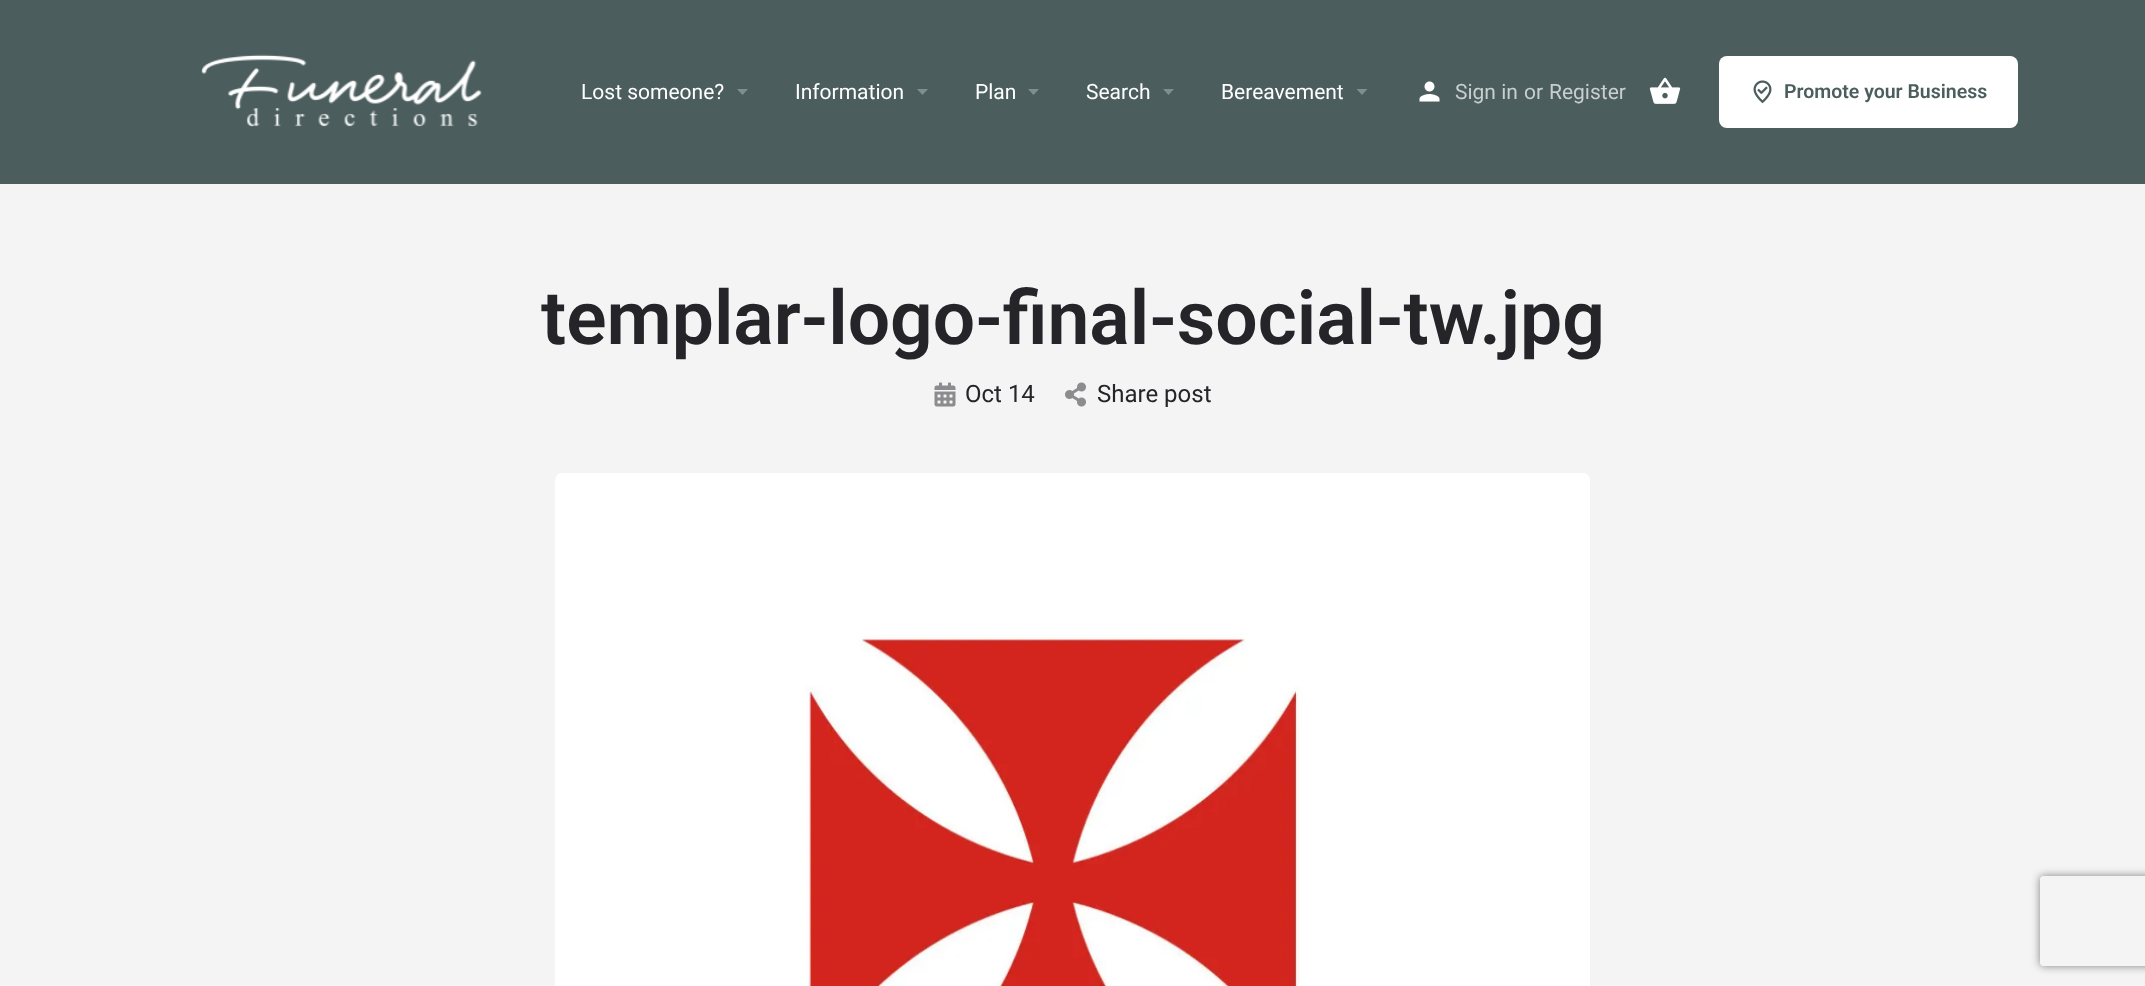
(async () => {
    const canvas = document.querySelector("canvas");
    canvas.width = 2145;
    canvas.height = 986;
    const context = canvas.getContext("2d");
    context.miterLimit = 4;
    context.fontKerning = "normal";
    function write(s, x, y, font, color) {
        context.font = font;
        context.fillStyle = color;
        context.fillText(s, x, y);
    }
    function block(x, y, w, h, color) {
        context.fillStyle = color;
        context.fillRect(x, y, w, h);
    }
    function card(x, y, w, h, r, color) {
        context.fillStyle = color;
        context.beginPath();
        context.roundRect(x, y, w, h, r);
        context.fill();
    }
    async function photo(src, x, y, w, h) {
        const img = new Image();
        img.src = src;
        await img.decode();
        context.drawImage(img, x, y, w, h);
    }

    block(0, 0, 2145, 986, "rgb(244, 244, 244)");
    block(0, 0, 2145, 184, "rgb(75, 93, 93)");
    await photo("media/1.png", 201, 54, 281, 73);
    write("Lost someone?", 581, 99, "21px Roboto", "rgb(255, 255, 255)");
    context.fillStyle = "rgb(129, 142, 142)";
    context.beginPath();
    context.moveTo(737, 89);
    context.lineTo(748, 89);
    context.lineTo(742.5, 95);
    context.closePath();
    context.fill();
    write("Information", 795, 99, "21px Roboto", "rgb(255, 255, 255)");
    context.fillStyle = "rgb(129, 142, 142)";
    context.beginPath();
    context.moveTo(917, 89);
    context.lineTo(928, 89);
    context.lineTo(922.5, 95);
    context.closePath();
    context.fill();
    write("Plan", 975, 99, "21px Roboto", "rgb(255, 255, 255)");
    context.fillStyle = "rgb(129, 142, 142)";
    context.beginPath();
    context.moveTo(1028, 89);
    context.lineTo(1039, 89);
    context.lineTo(1033.5, 95);
    context.closePath();
    context.fill();
    write("Search", 1086, 99, "21px Roboto", "rgb(255, 255, 255)");
    context.fillStyle = "rgb(129, 142, 142)";
    context.beginPath();
    context.moveTo(1163, 89);
    context.lineTo(1174, 89);
    context.lineTo(1168.5, 95);
    context.closePath();
    context.fill();
    write("Bereavement", 1221, 99, "21px Roboto", "rgb(255, 255, 255)");
    context.fillStyle = "rgb(129, 142, 142)";
    context.beginPath();
    context.moveTo(1356.5, 89);
    context.lineTo(1367.5, 89);
    context.lineTo(1362, 95);
    context.closePath();
    context.fill();
    await photo("media/2.png", 1419, 81, 21, 21);
    write("Sign in", 1455, 99, "21px Roboto", "rgb(201, 206, 206)");
    write("or", 1524, 99, "21px Roboto", "rgb(201, 206, 206)");
    write("Register", 1549, 99, "21px Roboto", "rgb(201, 206, 206)");
    await photo("media/3.png", 1649, 77, 32, 27);
    card(1719, 56, 299, 72, 8, "rgb(255, 255, 255)");
    await photo("media/4.png", 1753, 80, 19, 24);
    write("Promote your Business", 1784, 98, "600 19.5px Roboto", "rgb(75, 93, 93)");
    write("templar-logo-final-social-tw.jpg", 541, 344, "600 75px Roboto", "rgb(36, 36, 41)");
    await photo("media/5.png", 934, 382, 22, 25);
    write("Oct 14", 965, 402, "24px Roboto", "rgb(36, 36, 41)");
    await photo("media/6.png", 1065, 382, 21, 25);
    write("Share post", 1097, 402, "24px Roboto", "rgb(36, 36, 41)");
    await photo("media/7.png", 555, 473, 1035, 513);
    context.save();
    context.beginPath();
    context.moveTo(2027, 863);
    context.lineTo(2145, 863);
    context.lineTo(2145, 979);
    context.lineTo(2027, 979);
    context.closePath();
    context.moveTo(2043, 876);
    context.lineTo(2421, 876);
    context.bezierCurveTo(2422.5, 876, 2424, 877.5, 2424, 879);
    context.lineTo(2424, 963);
    context.bezierCurveTo(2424, 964.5, 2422.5, 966, 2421, 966);
    context.lineTo(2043, 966);
    context.bezierCurveTo(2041.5, 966, 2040, 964.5, 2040, 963);
    context.lineTo(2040, 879);
    context.bezierCurveTo(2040, 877.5, 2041.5, 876, 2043, 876);
    context.closePath();
    context.clip("evenodd");
    context.fillStyle = "rgb(128, 128, 128)";
    context.filter = "blur(4px)";
    context.beginPath();
    context.roundRect(2040, 876, 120, 90, 3);
    context.fill();
    context.filter = "none";
    context.restore();
})();
